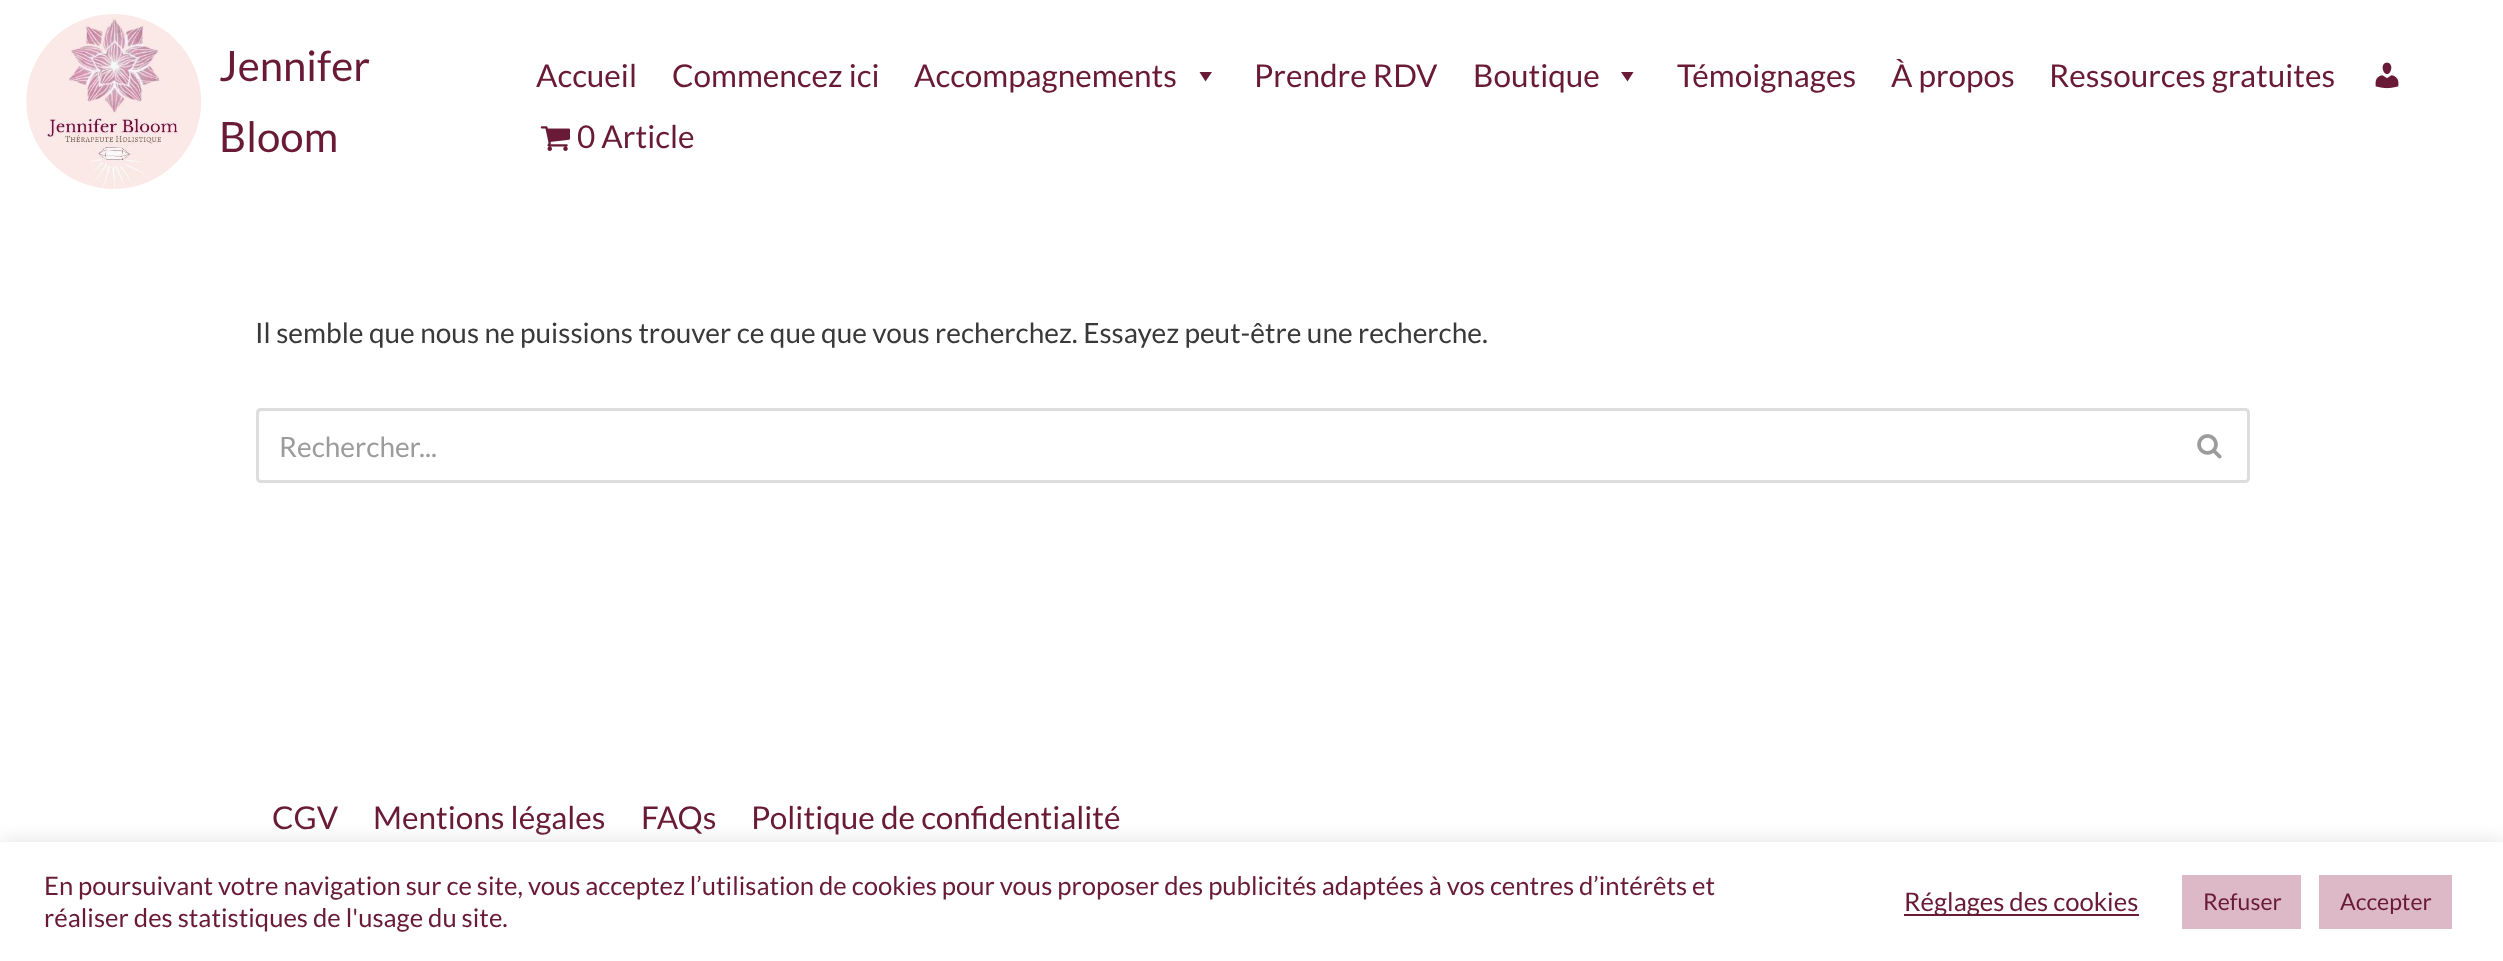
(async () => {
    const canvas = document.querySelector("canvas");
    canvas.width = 2503;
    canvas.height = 961;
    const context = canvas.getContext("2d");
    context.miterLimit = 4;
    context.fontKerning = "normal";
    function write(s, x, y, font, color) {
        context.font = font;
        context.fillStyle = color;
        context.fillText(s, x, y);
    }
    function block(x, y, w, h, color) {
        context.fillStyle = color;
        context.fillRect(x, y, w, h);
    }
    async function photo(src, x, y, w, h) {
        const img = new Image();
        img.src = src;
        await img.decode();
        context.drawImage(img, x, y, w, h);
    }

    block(0, 0, 2503, 961, "rgb(255, 255, 255)");
    await photo("media/1.png", 26, 14, 175, 175);
    write("Jennifer", 219, 81, "42px Lato", "rgb(105, 26, 54)");
    write("Bloom", 219, 152, "42px Lato", "rgb(105, 26, 54)");
    write("Accueil", 536, 87, "31.5px Lato", "rgb(105, 26, 54)");
    write("Commencez ici", 672, 87, "31.5px Lato", "rgb(105, 26, 54)");
    write("Accompagnements", 914, 87, "31.5px Lato", "rgb(105, 26, 54)");
    context.beginPath();
    context.moveTo(1212, 72);
    context.lineTo(1205.5, 81.5);
    context.lineTo(1199.5, 72);
    context.closePath();
    context.fill();
    write("Prendre RDV", 1254, 87, "31.5px Lato", "rgb(105, 26, 54)");
    write("Boutique", 1473, 87, "31.5px Lato", "rgb(105, 26, 54)");
    context.beginPath();
    context.moveTo(1633.5, 72);
    context.lineTo(1627.5, 81.5);
    context.lineTo(1621, 72);
    context.closePath();
    context.fill();
    write("Témoignages", 1677, 87, "31.5px Lato", "rgb(105, 26, 54)");
    write("À propos", 1891, 87, "31.5px Lato", "rgb(105, 26, 54)");
    write("Ressources gratuites", 2049, 87, "31.5px Lato", "rgb(105, 26, 54)");
    await photo("media/2.png", 2375, 62, 24, 27);
    await photo("media/3.png", 540, 126, 30, 25);
    write("0 Article", 577, 148, "31.5px Lato", "rgb(105, 26, 54)");
    write("Il semble que nous ne puissions trouver ce que que vous recherchez. Essayez peut-être une recherche.", 255, 343, "28px Lato", "rgb(57, 57, 57)");
    context.fillStyle = "rgb(221, 221, 221)";
    context.beginPath();
    context.moveTo(261, 408);
    context.lineTo(2172, 408);
    context.lineTo(2172, 483);
    context.lineTo(261, 483);
    context.bezierCurveTo(258, 483, 256, 481, 256, 478);
    context.lineTo(256, 413);
    context.bezierCurveTo(256, 410, 258, 408, 261, 408);
    context.closePath();
    context.moveTo(261, 411);
    context.lineTo(2172, 411);
    context.lineTo(2172, 480);
    context.lineTo(261, 480);
    context.bezierCurveTo(260, 480, 259, 479, 259, 478);
    context.lineTo(259, 413);
    context.bezierCurveTo(259, 412, 260, 411, 261, 411);
    context.closePath();
    context.fill("evenodd");
    write("Rechercher...", 279, 457, "28px Lato", "rgb(156, 156, 156)");
    context.fillStyle = "rgb(221, 221, 221)";
    context.beginPath();
    context.moveTo(2172, 408);
    context.lineTo(2245, 408);
    context.bezierCurveTo(2248, 408, 2250, 410, 2250, 413);
    context.lineTo(2250, 478);
    context.bezierCurveTo(2250, 481, 2248, 483, 2245, 483);
    context.lineTo(2172, 483);
    context.closePath();
    context.moveTo(2172, 411);
    context.lineTo(2245, 411);
    context.bezierCurveTo(2246, 411, 2247, 412, 2247, 413);
    context.lineTo(2247, 478);
    context.bezierCurveTo(2247, 479, 2246, 480, 2245, 480);
    context.lineTo(2172, 480);
    context.closePath();
    context.fill("evenodd");
    await photo("media/4.png", 2197, 434, 25, 25);
    write("CGV", 272, 829, "31.5px Lato", "rgb(105, 26, 54)");
    write("Mentions légales", 373, 829, "31.5px Lato", "rgb(105, 26, 54)");
    write("FAQs", 641, 829, "31.5px Lato", "rgb(105, 26, 54)");
    write("Politique de confidentialité", 751, 829, "31.5px Lato", "rgb(105, 26, 54)");
    context.fillStyle = "rgba(172, 171, 171, 0.3)";
    context.filter = "blur(9px)";
    context.beginPath();
    context.rect(0, 840, 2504, 121);
    context.fill();
    context.filter = "none";
    block(0, 842, 2503, 119, "rgb(255, 255, 255)");
    write("En poursuivant votre navigation sur ce site, vous acceptez l’utilisation de cookies pour vous proposer des publicités adaptées à vos centres d’intérêts et", 44, 895, "25.67px Lato", "rgb(105, 26, 54)");
    write("réaliser des statistiques de l'usage du site.", 44, 927, "25.67px Lato", "rgb(105, 26, 54)");
    block(1904, 914, 235, 2, "rgb(105, 26, 54)");
    write("Réglages des cookies", 1904, 911, "25.67px Lato", "rgb(105, 26, 54)");
    block(2182, 875, 119, 54, "rgb(221, 184, 199)");
    write("Refuser", 2203, 910, "23px Lato", "rgb(105, 26, 54)");
    block(2319, 875, 133, 54, "rgb(221, 184, 199)");
    write("Accepter", 2340, 910, "23px Lato", "rgb(105, 26, 54)");
})();
